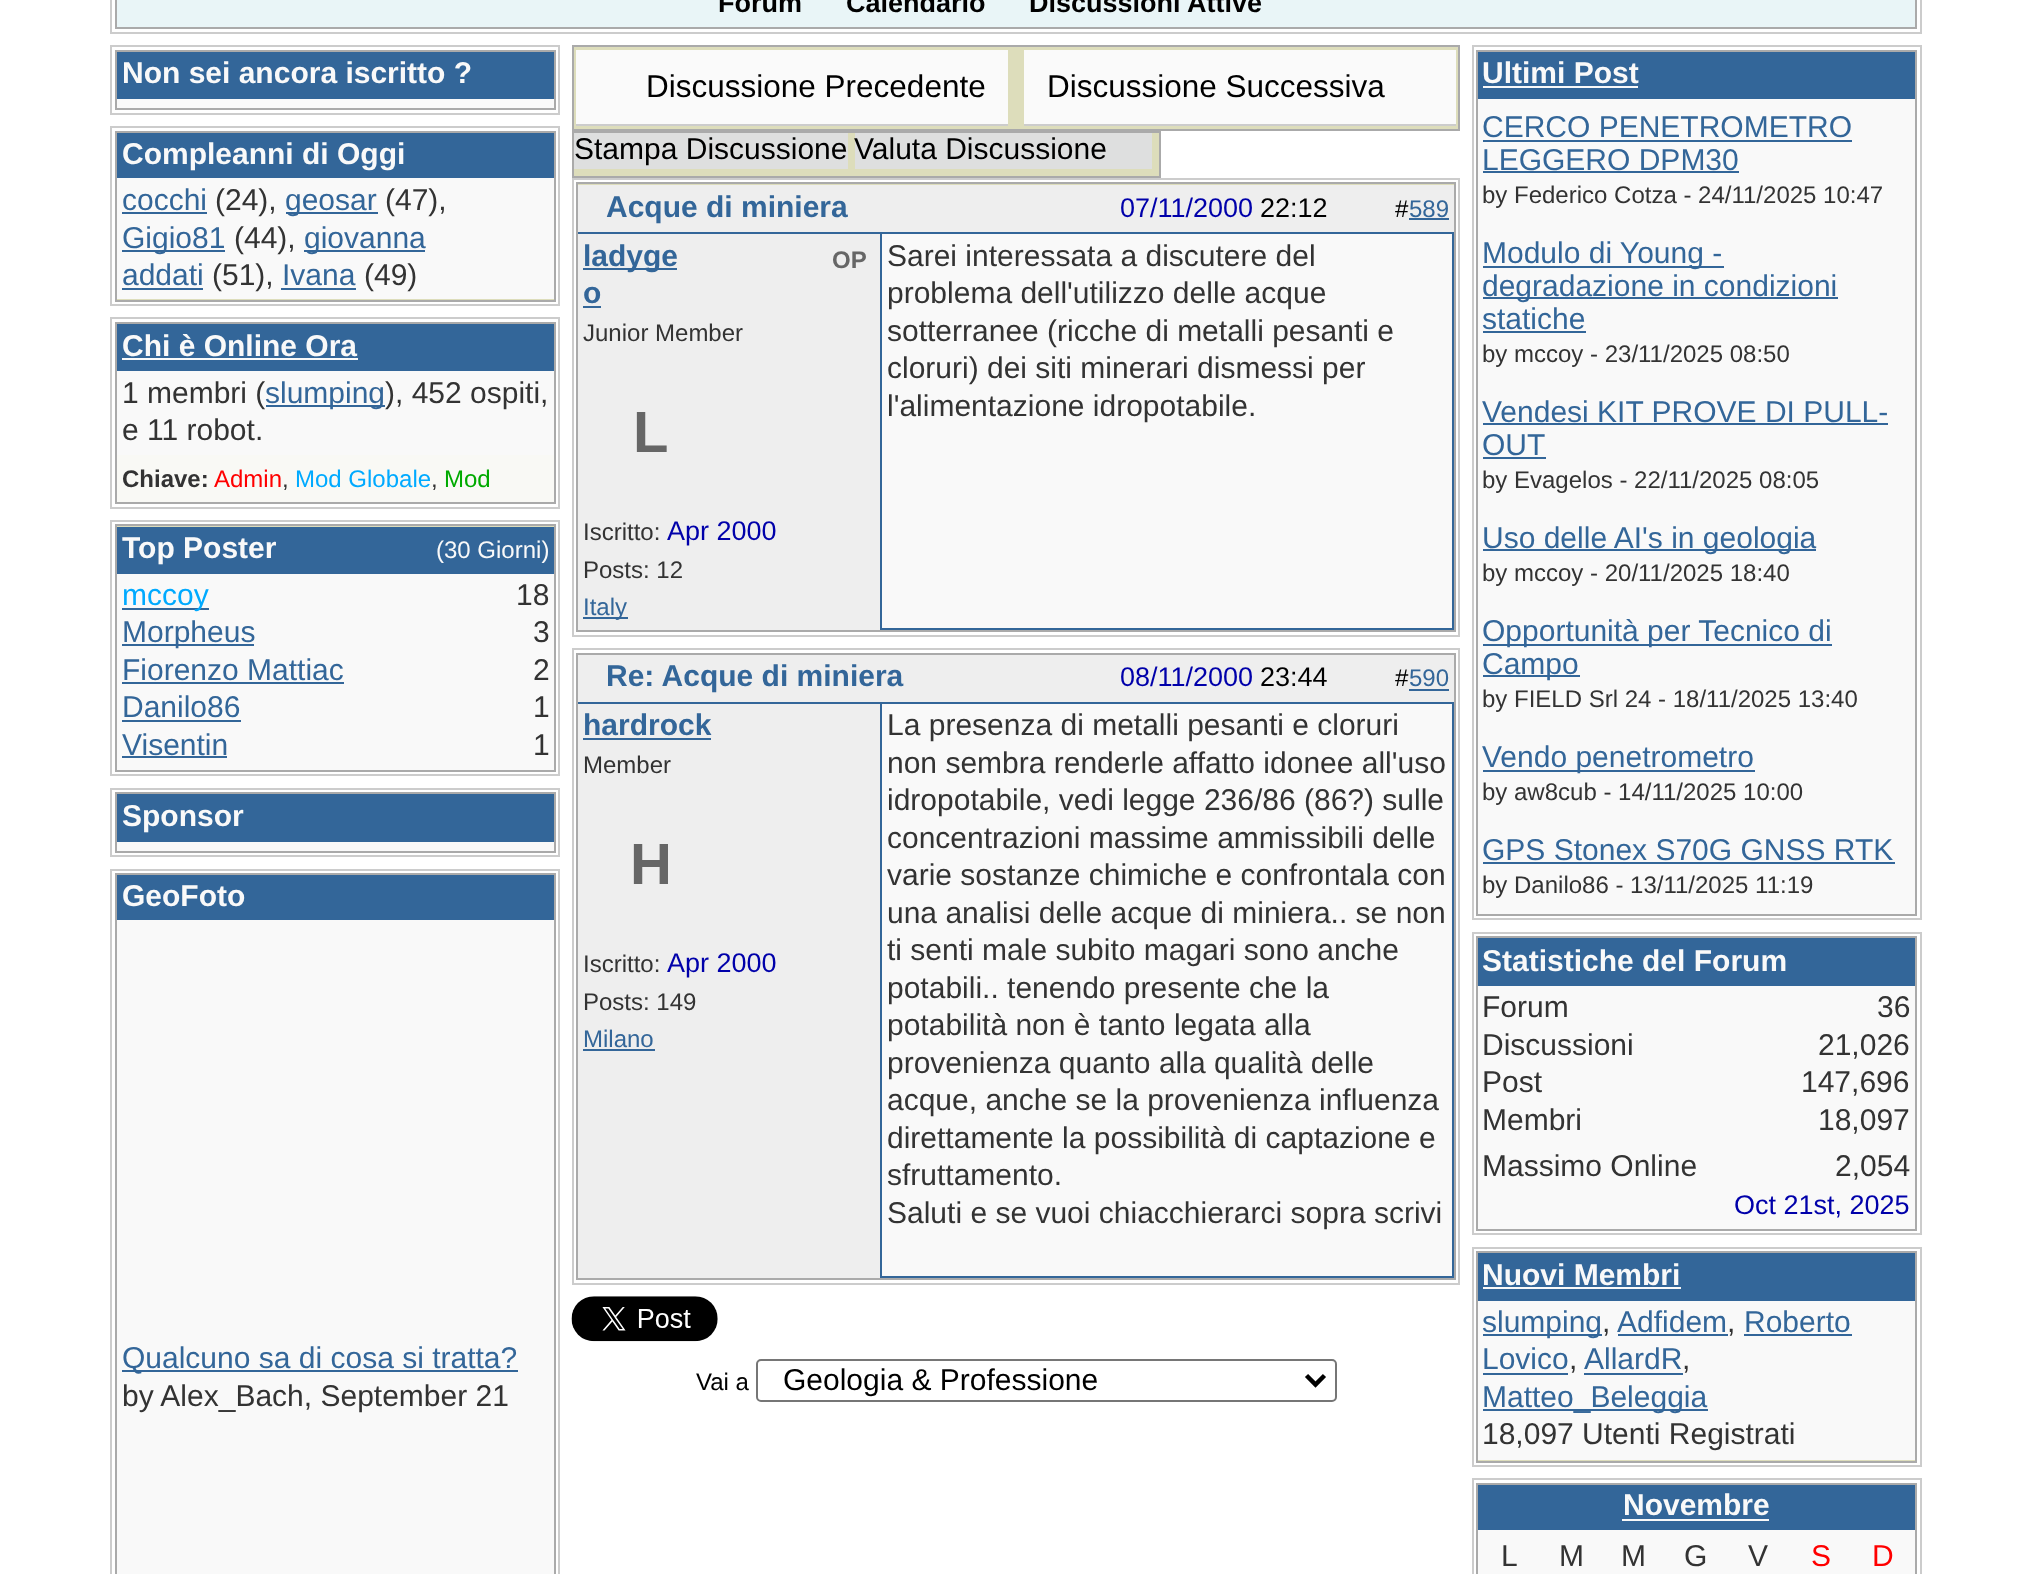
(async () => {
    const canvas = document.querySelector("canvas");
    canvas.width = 2031;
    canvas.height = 1574;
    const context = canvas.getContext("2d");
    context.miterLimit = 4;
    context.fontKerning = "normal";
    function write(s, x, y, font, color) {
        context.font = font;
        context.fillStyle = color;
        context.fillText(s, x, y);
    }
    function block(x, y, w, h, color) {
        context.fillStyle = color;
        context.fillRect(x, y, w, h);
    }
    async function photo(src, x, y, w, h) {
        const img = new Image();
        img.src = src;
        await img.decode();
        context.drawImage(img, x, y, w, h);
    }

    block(0, 0, 2031, 1574, "rgb(255, 255, 255)");
    context.strokeStyle = "rgb(204, 204, 204)";
    context.lineWidth = 2;
    context.strokeRect(111, -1, 1810, 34);
    context.strokeStyle = "rgb(170, 170, 170)";
    context.strokeRect(116, -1, 1800, 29);
    block(117, 0, 1798, 27, "rgb(233, 245, 247)");
    write("Forum", 718, 12, "bold 27px Liberation Sans", "rgb(0, 0, 0)");
    write("Calendario", 846, 12, "bold 27px Liberation Sans", "rgb(0, 0, 0)");
    write("Discussioni Attive", 1029, 12, "bold 27px Liberation Sans", "rgb(0, 0, 0)");
    context.strokeStyle = "rgb(204, 204, 204)";
    context.strokeRect(111, 46, 448, 68);
    context.strokeStyle = "rgb(170, 170, 170)";
    context.strokeRect(116, 51, 439, 58);
    block(117, 52, 437, 47, "rgb(51, 102, 153)");
    write("Non sei ancora iscritto ?", 122, 83, "bold 30px Liberation Sans", "rgb(249, 249, 249)");
    block(117, 99, 437, 9, "rgb(249, 249, 249)");
    context.strokeStyle = "rgb(204, 204, 204)";
    context.strokeRect(111, 127, 448, 178);
    block(117, 299, 437, 1, "rgb(221, 221, 187)");
    context.strokeStyle = "rgb(170, 170, 170)";
    context.strokeRect(116, 132, 439, 169);
    block(117, 133, 437, 45, "rgb(51, 102, 153)");
    write("Compleanni di Oggi", 122, 164, "bold 30px Liberation Sans", "rgb(249, 249, 249)");
    block(117, 178, 437, 121, "rgb(249, 249, 249)");
    write("cocchi", 122, 210, "30px Liberation Sans", "rgb(51, 102, 153)");
    block(122, 212, 85, 2, "rgb(51, 102, 153)");
    write("(24),", 215, 210, "30px Liberation Sans", "rgb(51, 51, 51)");
    block(286, 212, 92, 2, "rgb(51, 102, 153)");
    write("geosar", 285, 210, "30px Liberation Sans", "rgb(51, 102, 153)");
    write("(47),", 385, 210, "30px Liberation Sans", "rgb(51, 51, 51)");
    block(122, 250, 103, 2, "rgb(51, 102, 153)");
    write("Gigio81", 122, 248, "30px Liberation Sans", "rgb(51, 102, 153)");
    write("(44),", 234, 248, "30px Liberation Sans", "rgb(51, 51, 51)");
    block(304, 250, 121, 2, "rgb(51, 102, 153)");
    write("giovanna", 304, 248, "30px Liberation Sans", "rgb(51, 102, 153)");
    write("addati", 122, 285, "30px Liberation Sans", "rgb(51, 102, 153)");
    block(122, 288, 81, 2, "rgb(51, 102, 153)");
    write("(51),", 212, 285, "30px Liberation Sans", "rgb(51, 51, 51)");
    write("Ivana", 282, 285, "30px Liberation Sans", "rgb(51, 102, 153)");
    block(281, 288, 75, 2, "rgb(51, 102, 153)");
    write("(49)", 364, 285, "30px Liberation Sans", "rgb(51, 51, 51)");
    context.strokeStyle = "rgb(204, 204, 204)";
    context.strokeRect(111, 318, 448, 190);
    context.strokeStyle = "rgb(170, 170, 170)";
    context.strokeRect(116, 323, 439, 180);
    block(117, 324, 437, 47, "rgb(51, 102, 153)");
    write("Chi è Online Ora", 122, 356, "bold 30px Liberation Sans", "rgb(249, 249, 249)");
    block(122, 358, 236, 2, "rgb(249, 249, 249)");
    block(117, 371, 437, 84, "rgb(249, 249, 249)");
    write("1 membri (", 122, 403, "30px Liberation Sans", "rgb(51, 51, 51)");
    block(266, 405, 119, 2, "rgb(51, 102, 153)");
    write("slumping", 265, 403, "30px Liberation Sans", "rgb(51, 102, 153)");
    write("), 452 ospiti,", 385, 403, "30px Liberation Sans", "rgb(51, 51, 51)");
    write("e 11 robot.", 122, 440, "30px Liberation Sans", "rgb(51, 51, 51)");
    block(117, 455, 437, 47, "rgb(249, 249, 245)");
    write("Chiave:", 122, 487, "bold 24px Liberation Sans", "rgb(51, 51, 51)");
    write("Admin", 214, 487, "24px Liberation Sans", "rgb(255, 0, 0)");
    write(",", 282, 487, "24px Liberation Sans", "rgb(51, 51, 51)");
    write("Mod Globale", 295, 487, "24px Liberation Sans", "rgb(0, 170, 255)");
    write(",", 431, 487, "24px Liberation Sans", "rgb(51, 51, 51)");
    write("Mod", 444, 487, "24px Liberation Sans", "rgb(0, 170, 0)");
    context.strokeStyle = "rgb(204, 204, 204)";
    context.strokeRect(111, 521, 448, 254);
    block(117, 526, 437, 1, "rgb(221, 221, 187)");
    context.strokeStyle = "rgb(170, 170, 170)";
    context.strokeRect(116, 525, 439, 246);
    block(117, 527, 437, 47, "rgb(51, 102, 153)");
    write("Top Poster", 122, 558, "bold 30px Liberation Sans", "rgb(249, 249, 249)");
    write("(30 Giorni)", 436, 558, "24px Liberation Sans", "rgb(249, 249, 249)");
    block(117, 574, 437, 196, "rgb(249, 249, 249)");
    block(122, 608, 87, 2, "rgb(51, 102, 153)");
    write("mccoy", 122, 605, "30px Liberation Sans", "rgb(0, 170, 255)");
    write("18", 516, 605, "30px Liberation Sans", "rgb(51, 51, 51)");
    block(122, 644, 132, 2, "rgb(51, 102, 153)");
    write("Morpheus", 122, 642, "30px Liberation Sans", "rgb(51, 102, 153)");
    write("3", 533, 642, "30px Liberation Sans", "rgb(51, 51, 51)");
    write("Fiorenzo Mattiac", 122, 680, "30px Liberation Sans", "rgb(51, 102, 153)");
    block(122, 682, 222, 2, "rgb(51, 102, 153)");
    write("2", 533, 680, "30px Liberation Sans", "rgb(51, 51, 51)");
    write("Danilo86", 122, 717, "30px Liberation Sans", "rgb(51, 102, 153)");
    block(122, 720, 119, 2, "rgb(51, 102, 153)");
    write("1", 533, 717, "30px Liberation Sans", "rgb(51, 51, 51)");
    write("Visentin", 122, 755, "30px Liberation Sans", "rgb(51, 102, 153)");
    block(122, 756, 105, 2, "rgb(51, 102, 153)");
    write("1", 533, 755, "30px Liberation Sans", "rgb(51, 51, 51)");
    context.strokeStyle = "rgb(204, 204, 204)";
    context.strokeRect(111, 789, 448, 67);
    context.strokeStyle = "rgb(170, 170, 170)";
    context.strokeRect(116, 793, 439, 59);
    block(117, 794, 437, 48, "rgb(51, 102, 153)");
    write("Sponsor", 122, 826, "bold 30px Liberation Sans", "rgb(249, 249, 249)");
    block(117, 842, 437, 9, "rgb(249, 249, 249)");
    context.strokeStyle = "rgb(204, 204, 204)";
    context.strokeRect(111, 870, 448, 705);
    context.strokeStyle = "rgb(170, 170, 170)";
    context.strokeRect(116, 874, 439, 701);
    block(117, 875, 437, 45, "rgb(51, 102, 153)");
    write("GeoFoto", 122, 906, "bold 30px Liberation Sans", "rgb(249, 249, 249)");
    block(117, 920, 437, 654, "rgb(249, 249, 249)");
    block(122, 1370, 396, 2, "rgb(51, 102, 153)");
    write("Qualcuno sa di cosa si tratta?", 122, 1368, "30px Liberation Sans", "rgb(51, 102, 153)");
    write("by Alex_Bach, September 21", 122, 1406, "30px Liberation Sans", "rgb(51, 51, 51)");
    context.fillStyle = "rgb(221, 221, 187)";
    context.beginPath();
    context.rect(573, 46, 886, 84);
    context.fill();
    context.stroke();
    block(576, 50, 432, 74, "rgb(250, 250, 250)");
    block(576, 124, 432, 2, "rgb(204, 204, 204)");
    write("Discussione Precedente", 646, 97, "31.5px Liberation Sans", "rgb(0, 0, 0)");
    block(1024, 50, 432, 74, "rgb(250, 250, 250)");
    block(1024, 124, 432, 2, "rgb(204, 204, 204)");
    write("Discussione Successiva", 1047, 97, "31.5px Liberation Sans", "rgb(0, 0, 0)");
    context.fillStyle = "rgb(221, 221, 187)";
    context.beginPath();
    context.rect(573, 132, 587, 45);
    context.fill();
    context.stroke();
    block(574, 133, 274, 36, "rgb(222, 223, 223)");
    write("Stampa Discussione", 574, 159, "30px Liberation Sans", "rgb(0, 0, 0)");
    block(855, 133, 297, 36, "rgb(222, 223, 223)");
    write("Valuta Discussione", 854, 159, "30px Liberation Sans", "rgb(0, 0, 0)");
    context.strokeStyle = "rgb(204, 204, 204)";
    context.strokeRect(573, 179, 886, 457);
    block(578, 184, 876, 1, "rgb(221, 221, 187)");
    context.strokeStyle = "rgb(170, 170, 170)";
    context.strokeRect(577, 183, 878, 448);
    block(578, 185, 876, 47, "rgb(238, 238, 238)");
    write("Acque di miniera", 606, 217, "bold 30px Liberation Sans", "rgb(51, 102, 153)");
    write("07/11/2000", 1120, 217, "27px Liberation Sans", "rgb(0, 0, 170)");
    write("22:12", 1260, 217, "27px Liberation Sans", "rgb(0, 0, 0)");
    write("#", 1395, 217, "24px Liberation Sans", "rgb(0, 0, 0)");
    write("589", 1409, 217, "24px Liberation Sans", "rgb(51, 102, 153)");
    block(1409, 218, 40, 2, "rgb(51, 102, 153)");
    block(578, 234, 302, 396, "rgb(238, 238, 238)");
    block(578, 232, 302, 2, "rgb(51, 102, 153)");
    block(583, 268, 94, 2, "rgb(51, 102, 153)");
    write("ladyge", 583, 266, "bold 30px Liberation Sans", "rgb(51, 102, 153)");
    write("o", 583, 303, "bold 30px Liberation Sans", "rgb(51, 102, 153)");
    block(583, 306, 18, 2, "rgb(51, 102, 153)");
    write("OP", 832, 268, "bold 24px Liberation Sans", "rgb(102, 102, 102)");
    write("Junior Member", 583, 341, "24px Liberation Sans", "rgb(51, 51, 51)");
    write("L", 633, 452, "bold 58px Liberation Sans", "rgb(102, 102, 102)");
    write("Iscritto:", 583, 540, "24px Liberation Sans", "rgb(51, 51, 51)");
    write("Apr 2000", 667, 540, "27px Liberation Sans", "rgb(0, 0, 170)");
    write("Posts: 12", 583, 578, "24px Liberation Sans", "rgb(51, 51, 51)");
    block(583, 617, 45, 2, "rgb(51, 102, 153)");
    write("Italy", 583, 615, "24px Liberation Sans", "rgb(51, 102, 153)");
    context.fillStyle = "rgb(249, 249, 249)";
    context.beginPath();
    context.rect(881, 233, 572, 396);
    context.fill();
    context.strokeStyle = "rgb(51, 102, 153)";
    context.stroke();
    write("Sarei interessata a discutere del", 887, 266, "30px Liberation Sans", "rgb(51, 51, 51)");
    write("problema dell'utilizzo delle acque", 887, 303, "30px Liberation Sans", "rgb(51, 51, 51)");
    write("sotterranee (ricche di metalli pesanti e", 887, 341, "30px Liberation Sans", "rgb(51, 51, 51)");
    write("cloruri) dei siti minerari dismessi per", 887, 378, "30px Liberation Sans", "rgb(51, 51, 51)");
    write("l'alimentazione idropotabile.", 887, 416, "30px Liberation Sans", "rgb(51, 51, 51)");
    context.strokeStyle = "rgb(204, 204, 204)";
    context.strokeRect(573, 649, 886, 635);
    context.strokeStyle = "rgb(170, 170, 170)";
    context.strokeRect(577, 654, 878, 625);
    block(578, 655, 876, 47, "rgb(238, 238, 238)");
    write("Re: Acque di miniera", 606, 686, "bold 30px Liberation Sans", "rgb(51, 102, 153)");
    write("08/11/2000", 1120, 686, "27px Liberation Sans", "rgb(0, 0, 170)");
    write("23:44", 1260, 686, "27px Liberation Sans", "rgb(0, 0, 0)");
    write("#", 1395, 686, "24px Liberation Sans", "rgb(0, 0, 0)");
    write("590", 1409, 686, "24px Liberation Sans", "rgb(51, 102, 153)");
    block(1409, 689, 40, 2, "rgb(51, 102, 153)");
    block(578, 704, 302, 574, "rgb(238, 238, 238)");
    block(578, 702, 302, 2, "rgb(51, 102, 153)");
    write("hardrock", 583, 735, "bold 30px Liberation Sans", "rgb(51, 102, 153)");
    block(583, 738, 128, 2, "rgb(51, 102, 153)");
    write("Member", 583, 773, "24px Liberation Sans", "rgb(51, 51, 51)");
    write("H", 630, 884, "bold 58px Liberation Sans", "rgb(102, 102, 102)");
    write("Iscritto:", 583, 972, "24px Liberation Sans", "rgb(51, 51, 51)");
    write("Apr 2000", 667, 972, "27px Liberation Sans", "rgb(0, 0, 170)");
    write("Posts: 149", 583, 1010, "24px Liberation Sans", "rgb(51, 51, 51)");
    write("Milano", 583, 1047, "24px Liberation Sans", "rgb(51, 102, 153)");
    block(583, 1049, 72, 2, "rgb(51, 102, 153)");
    context.fillStyle = "rgb(249, 249, 249)";
    context.beginPath();
    context.rect(881, 703, 572, 574);
    context.fill();
    context.strokeStyle = "rgb(51, 102, 153)";
    context.stroke();
    write("La presenza di metalli pesanti e cloruri", 887, 735, "30px Liberation Sans", "rgb(51, 51, 51)");
    write("non sembra renderle affatto idonee all'uso", 887, 773, "30px Liberation Sans", "rgb(51, 51, 51)");
    write("idropotabile, vedi legge 236/86 (86?) sulle", 887, 810, "30px Liberation Sans", "rgb(51, 51, 51)");
    write("concentrazioni massime ammissibili delle", 887, 848, "30px Liberation Sans", "rgb(51, 51, 51)");
    write("varie sostanze chimiche e confrontala con", 887, 885, "30px Liberation Sans", "rgb(51, 51, 51)");
    write("una analisi delle acque di miniera.. se non", 887, 923, "30px Liberation Sans", "rgb(51, 51, 51)");
    write("ti senti male subito magari sono anche", 887, 960, "30px Liberation Sans", "rgb(51, 51, 51)");
    write("potabili.. tenendo presente che la", 887, 998, "30px Liberation Sans", "rgb(51, 51, 51)");
    write("potabilità non è tanto legata alla", 887, 1035, "30px Liberation Sans", "rgb(51, 51, 51)");
    write("provenienza quanto alla qualità delle", 887, 1073, "30px Liberation Sans", "rgb(51, 51, 51)");
    write("acque, anche se la provenienza influenza", 887, 1110, "30px Liberation Sans", "rgb(51, 51, 51)");
    write("direttamente la possibilità di captazione e", 887, 1148, "30px Liberation Sans", "rgb(51, 51, 51)");
    write("sfruttamento.", 887, 1185, "30px Liberation Sans", "rgb(51, 51, 51)");
    write("Saluti e se vuoi chiacchierarci sopra scrivi", 887, 1223, "30px Liberation Sans", "rgb(51, 51, 51)");
    await photo("media/1.png", 571, 1296, 147, 46);
    write("Vai a", 696, 1390, "24px Liberation Sans", "rgb(0, 0, 0)");
    context.beginPath();
    context.roundRect(757, 1360, 579, 41, 4);
    context.strokeStyle = "rgb(118, 118, 118)";
    context.stroke();
    context.beginPath();
    context.moveTo(1306.5, 1375.5);
    context.lineTo(1315.5, 1384.5);
    context.lineTo(1324.5, 1375.5);
    context.strokeStyle = "rgb(0, 0, 0)";
    context.lineWidth = 4.5;
    context.stroke();
    write("Geologia & Professione", 783, 1390, "30px Liberation Sans", "rgb(0, 0, 0)");
    context.strokeStyle = "rgb(204, 204, 204)";
    context.lineWidth = 2;
    context.strokeRect(1473, 46, 448, 873);
    context.strokeStyle = "rgb(170, 170, 170)";
    context.strokeRect(1477, 51, 439, 864);
    block(1478, 52, 437, 47, "rgb(51, 102, 153)");
    write("Ultimi Post", 1482, 83, "bold 30px Liberation Sans", "rgb(249, 249, 249)");
    block(1483, 86, 155, 2, "rgb(249, 249, 249)");
    block(1478, 99, 437, 815, "rgb(249, 249, 249)");
    write("CERCO PENETROMETRO", 1482, 137, "30px Liberation Sans", "rgb(51, 102, 153)");
    block(1483, 140, 369, 2, "rgb(51, 102, 153)");
    write("LEGGERO DPM30", 1482, 170, "30px Liberation Sans", "rgb(51, 102, 153)");
    block(1483, 171, 256, 2, "rgb(51, 102, 153)");
    write("by Federico Cotza - 24/11/2025 10:47", 1482, 203, "24px Liberation Sans", "rgb(51, 51, 51)");
    block(1483, 266, 241, 2, "rgb(51, 102, 153)");
    write("Modulo di Young -", 1482, 263, "30px Liberation Sans", "rgb(51, 102, 153)");
    block(1483, 297, 355, 2, "rgb(51, 102, 153)");
    write("degradazione in condizioni", 1482, 296, "30px Liberation Sans", "rgb(51, 102, 153)");
    write("statiche", 1482, 329, "30px Liberation Sans", "rgb(51, 102, 153)");
    block(1483, 331, 103, 2, "rgb(51, 102, 153)");
    write("by mccoy - 23/11/2025 08:50", 1482, 362, "24px Liberation Sans", "rgb(51, 51, 51)");
    write("Vendesi KIT PROVE DI PULL-", 1482, 422, "30px Liberation Sans", "rgb(51, 102, 153)");
    block(1483, 423, 405, 2, "rgb(51, 102, 153)");
    write("OUT", 1482, 455, "30px Liberation Sans", "rgb(51, 102, 153)");
    block(1483, 457, 63, 2, "rgb(51, 102, 153)");
    write("by Evagelos - 22/11/2025 08:05", 1482, 488, "24px Liberation Sans", "rgb(51, 51, 51)");
    block(1483, 549, 333, 2, "rgb(51, 102, 153)");
    write("Uso delle AI's in geologia", 1482, 548, "30px Liberation Sans", "rgb(51, 102, 153)");
    write("by mccoy - 20/11/2025 18:40", 1482, 581, "24px Liberation Sans", "rgb(51, 51, 51)");
    block(1483, 644, 349, 2, "rgb(51, 102, 153)");
    write("Opportunità per Tecnico di", 1482, 641, "30px Liberation Sans", "rgb(51, 102, 153)");
    block(1483, 675, 97, 2, "rgb(51, 102, 153)");
    write("Campo", 1482, 674, "30px Liberation Sans", "rgb(51, 102, 153)");
    write("by FIELD Srl 24 - 18/11/2025 13:40", 1482, 707, "24px Liberation Sans", "rgb(51, 51, 51)");
    block(1483, 770, 272, 2, "rgb(51, 102, 153)");
    write("Vendo penetrometro", 1482, 767, "30px Liberation Sans", "rgb(51, 102, 153)");
    write("by aw8cub - 14/11/2025 10:00", 1482, 800, "24px Liberation Sans", "rgb(51, 51, 51)");
    write("GPS Stonex S70G GNSS RTK", 1482, 860, "30px Liberation Sans", "rgb(51, 102, 153)");
    block(1483, 862, 412, 2, "rgb(51, 102, 153)");
    write("by Danilo86 - 13/11/2025 11:19", 1482, 893, "24px Liberation Sans", "rgb(51, 51, 51)");
    context.strokeStyle = "rgb(204, 204, 204)";
    context.strokeRect(1473, 933, 448, 301);
    context.strokeStyle = "rgb(170, 170, 170)";
    context.strokeRect(1477, 937, 439, 293);
    block(1478, 938, 437, 48, "rgb(51, 102, 153)");
    write("Statistiche del Forum", 1482, 971, "bold 30px Liberation Sans", "rgb(249, 249, 249)");
    block(1478, 986, 437, 243, "rgb(249, 249, 249)");
    write("Forum", 1482, 1017, "30px Liberation Sans", "rgb(51, 51, 51)");
    write("36", 1877, 1017, "30px Liberation Sans", "rgb(51, 51, 51)");
    write("Discussioni", 1482, 1055, "30px Liberation Sans", "rgb(51, 51, 51)");
    write("21,026", 1818, 1055, "30px Liberation Sans", "rgb(51, 51, 51)");
    write("Post", 1482, 1092, "30px Liberation Sans", "rgb(51, 51, 51)");
    write("147,696", 1801, 1092, "30px Liberation Sans", "rgb(51, 51, 51)");
    write("Membri", 1482, 1130, "30px Liberation Sans", "rgb(51, 51, 51)");
    write("18,097", 1818, 1130, "30px Liberation Sans", "rgb(51, 51, 51)");
    write("Massimo Online", 1482, 1176, "30px Liberation Sans", "rgb(51, 51, 51)");
    write("2,054", 1835, 1176, "30px Liberation Sans", "rgb(51, 51, 51)");
    write("Oct 21st, 2025", 1734, 1214, "27px Liberation Sans", "rgb(0, 0, 170)");
    context.strokeStyle = "rgb(204, 204, 204)";
    context.strokeRect(1473, 1248, 448, 218);
    block(1478, 1460, 437, 1, "rgb(221, 221, 187)");
    context.strokeStyle = "rgb(170, 170, 170)";
    context.strokeRect(1477, 1252, 439, 210);
    block(1478, 1253, 437, 48, "rgb(51, 102, 153)");
    write("Nuovi Membri", 1482, 1285, "bold 30px Liberation Sans", "rgb(249, 249, 249)");
    block(1483, 1287, 198, 2, "rgb(249, 249, 249)");
    block(1478, 1301, 437, 159, "rgb(249, 249, 249)");
    block(1483, 1334, 119, 2, "rgb(51, 102, 153)");
    write("slumping", 1482, 1332, "30px Liberation Sans", "rgb(51, 102, 153)");
    write(",", 1602, 1332, "30px Liberation Sans", "rgb(51, 51, 51)");
    write("Adfidem", 1617, 1332, "30px Liberation Sans", "rgb(51, 102, 153)");
    block(1618, 1334, 110, 2, "rgb(51, 102, 153)");
    write(",", 1727, 1332, "30px Liberation Sans", "rgb(51, 51, 51)");
    write("Roberto", 1744, 1332, "30px Liberation Sans", "rgb(51, 102, 153)");
    block(1744, 1334, 108, 2, "rgb(51, 102, 153)");
    write("Lovico", 1482, 1369, "30px Liberation Sans", "rgb(51, 102, 153)");
    block(1483, 1373, 85, 2, "rgb(51, 102, 153)");
    write(",", 1569, 1369, "30px Liberation Sans", "rgb(51, 51, 51)");
    write("AllardR", 1584, 1369, "30px Liberation Sans", "rgb(51, 102, 153)");
    block(1584, 1373, 99, 2, "rgb(51, 102, 153)");
    write(",", 1682, 1369, "30px Liberation Sans", "rgb(51, 51, 51)");
    block(1483, 1409, 225, 2, "rgb(51, 102, 153)");
    write("Matteo_Beleggia", 1482, 1407, "30px Liberation Sans", "rgb(51, 102, 153)");
    write("18,097 Utenti Registrati", 1482, 1444, "30px Liberation Sans", "rgb(51, 51, 51)");
    context.strokeStyle = "rgb(204, 204, 204)";
    context.strokeRect(1473, 1479, 448, 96);
    context.strokeStyle = "rgb(170, 170, 170)";
    context.strokeRect(1477, 1484, 439, 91);
    block(1478, 1485, 437, 45, "rgb(51, 102, 153)");
    write("Novembre", 1623, 1515, "bold 30px Liberation Sans", "rgb(249, 249, 249)");
    block(1622, 1519, 147, 2, "rgb(249, 249, 249)");
    block(1478, 1530, 437, 44, "rgb(249, 249, 249)");
    write("L", 1501, 1566, "30px Liberation Sans", "rgb(51, 51, 51)");
    write("M", 1559, 1566, "30px Liberation Sans", "rgb(51, 51, 51)");
    write("M", 1621, 1566, "30px Liberation Sans", "rgb(51, 51, 51)");
    write("G", 1684, 1566, "30px Liberation Sans", "rgb(51, 51, 51)");
    write("V", 1748, 1566, "30px Liberation Sans", "rgb(51, 51, 51)");
    write("S", 1811, 1566, "30px Liberation Sans", "rgb(255, 0, 0)");
    write("D", 1872, 1566, "30px Liberation Sans", "rgb(255, 0, 0)");
})();
